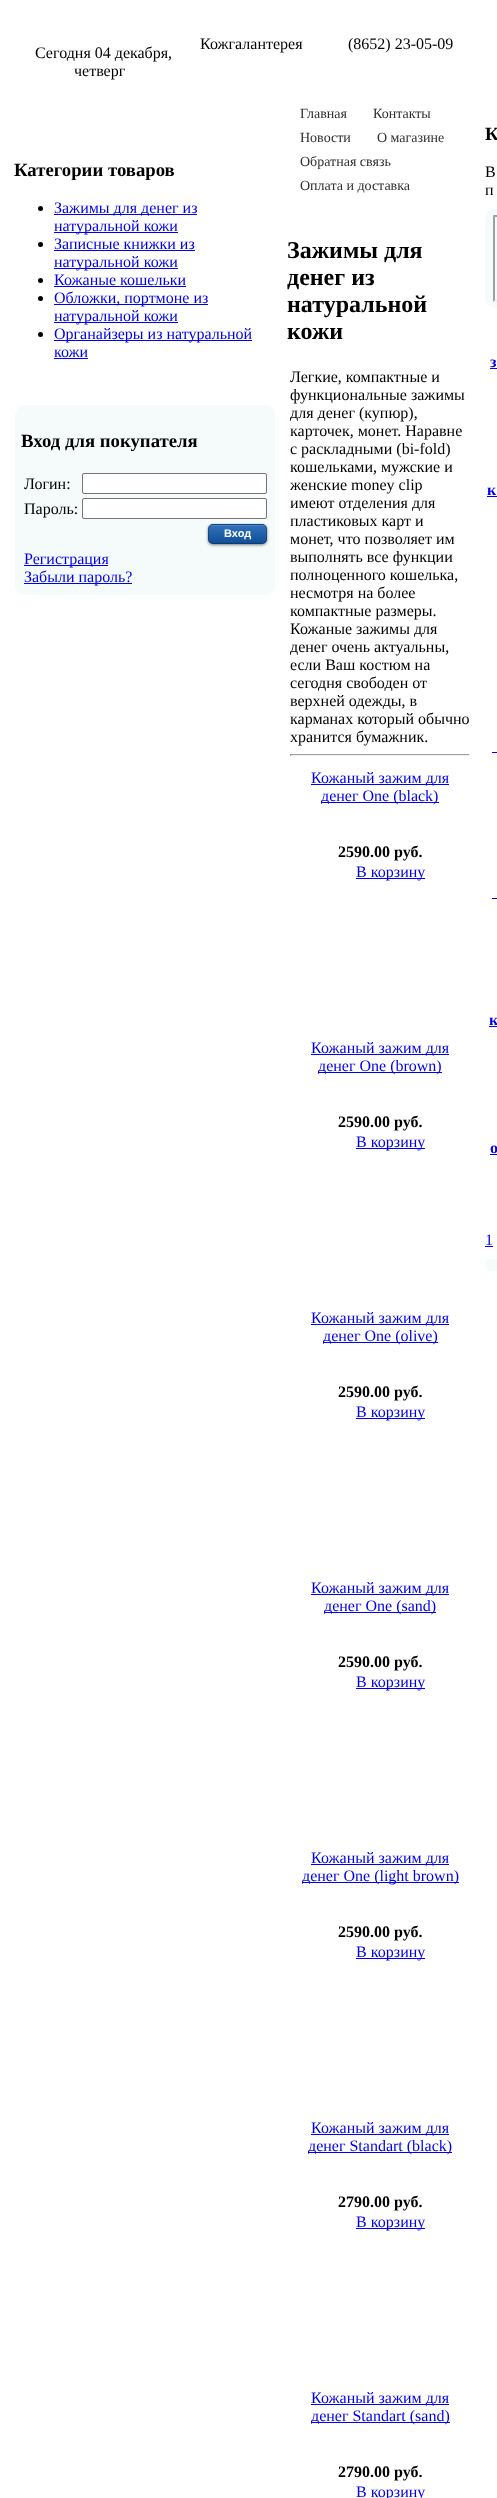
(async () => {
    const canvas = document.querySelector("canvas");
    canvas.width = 497;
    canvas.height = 2498;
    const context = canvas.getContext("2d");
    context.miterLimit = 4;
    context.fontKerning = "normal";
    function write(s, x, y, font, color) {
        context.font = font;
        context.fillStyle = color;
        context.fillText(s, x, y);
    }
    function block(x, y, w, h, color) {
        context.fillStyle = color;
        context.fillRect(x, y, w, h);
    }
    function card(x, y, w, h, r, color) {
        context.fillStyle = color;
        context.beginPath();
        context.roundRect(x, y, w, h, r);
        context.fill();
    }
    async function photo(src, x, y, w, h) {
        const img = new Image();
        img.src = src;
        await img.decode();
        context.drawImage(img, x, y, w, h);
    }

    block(0, 0, 497, 2498, "rgb(255, 255, 255)");
    write("Сегодня 04 декабря,", 35, 58, "16px Liberation Serif", "rgb(0, 0, 0)");
    write("четверг", 74, 76, "16px Liberation Serif", "rgb(0, 0, 0)");
    write("Кожгалантерея", 200, 49, "16px Liberation Serif", "rgb(0, 0, 0)");
    write("(8652) 23-05-09", 348, 49, "16px Liberation Serif", "rgb(0, 0, 0)");
    write("Категории товаров", 14, 176, "bold 18.75px Liberation Serif", "rgb(0, 0, 0)");
    context.beginPath();
    context.arc(40.5, 208.5, 2.5, 0, Math.PI * 2);
    context.fill();
    block(54, 214, 143, 1, "rgb(0, 0, 238)");
    write("Зажимы для денег из", 54, 213, "16px Liberation Serif", "rgb(0, 0, 238)");
    block(54, 232, 124, 1, "rgb(0, 0, 238)");
    write("натуральной кожи", 54, 231, "16px Liberation Serif", "rgb(0, 0, 238)");
    context.fillStyle = "rgb(0, 0, 0)";
    context.beginPath();
    context.arc(40.5, 244.5, 2.5, 0, Math.PI * 2);
    context.fill();
    write("Записные книжки из", 54, 249, "16px Liberation Serif", "rgb(0, 0, 238)");
    block(54, 250, 141, 1, "rgb(0, 0, 238)");
    block(54, 268, 124, 1, "rgb(0, 0, 238)");
    write("натуральной кожи", 54, 267, "16px Liberation Serif", "rgb(0, 0, 238)");
    context.fillStyle = "rgb(0, 0, 0)";
    context.beginPath();
    context.arc(40.5, 280.5, 2.5, 0, Math.PI * 2);
    context.fill();
    write("Кожаные кошельки", 54, 285, "16px Liberation Serif", "rgb(0, 0, 238)");
    block(54, 286, 132, 1, "rgb(0, 0, 238)");
    context.fillStyle = "rgb(0, 0, 0)";
    context.beginPath();
    context.arc(40.5, 298.5, 2.5, 0, Math.PI * 2);
    context.fill();
    block(54, 304, 154, 1, "rgb(0, 0, 238)");
    write("Обложки, портмоне из", 54, 303, "16px Liberation Serif", "rgb(0, 0, 238)");
    block(54, 322, 124, 1, "rgb(0, 0, 238)");
    write("натуральной кожи", 54, 321, "16px Liberation Serif", "rgb(0, 0, 238)");
    context.fillStyle = "rgb(0, 0, 0)";
    context.beginPath();
    context.arc(40.5, 334.5, 2.5, 0, Math.PI * 2);
    context.fill();
    block(54, 340, 198, 1, "rgb(0, 0, 238)");
    write("Органайзеры из натуральной", 54, 339, "16px Liberation Serif", "rgb(0, 0, 238)");
    write("кожи", 54, 357, "16px Liberation Serif", "rgb(0, 0, 238)");
    block(54, 358, 34, 1, "rgb(0, 0, 238)");
    card(15, 405, 260, 190, 10, "rgb(245, 250, 250)");
    write("Вход для покупателя", 21, 447, "bold 18.75px Liberation Serif", "rgb(0, 0, 0)");
    write("Логин:", 24, 489, "16px Liberation Serif", "rgb(0, 0, 0)");
    context.fillStyle = "rgb(255, 255, 255)";
    context.beginPath();
    context.roundRect(82.5, 473.5, 184, 20, 1.5);
    context.fill();
    context.strokeStyle = "rgb(118, 118, 118)";
    context.stroke();
    write("Пароль:", 24, 514, "16px Liberation Serif", "rgb(0, 0, 0)");
    context.fillStyle = "rgb(255, 255, 255)";
    context.beginPath();
    context.roundRect(82.5, 498.5, 184, 20, 1.5);
    context.fill();
    context.stroke();
    context.fillStyle = "rgba(0, 0, 0, 0.5)";
    context.filter = "blur(1.5px)";
    context.beginPath();
    context.roundRect(208, 525, 59, 20, 5);
    context.fill();
    context.filter = "none";
    card(208, 524, 59, 20, 5, "rgb(14, 89, 174)");
    await photo("media/1.png", 208, 525, 59, 19);
    context.beginPath();
    context.roundRect(208.5, 524.5, 58, 19, 4.5);
    context.strokeStyle = "rgba(0, 0, 0, 0.25)";
    context.stroke();
    write("Вход", 224, 537, "bold 11px Liberation Sans", "rgb(255, 255, 255)");
    block(24, 565, 84, 1, "rgb(0, 0, 238)");
    write("Регистрация", 24, 564, "16px Liberation Serif", "rgb(0, 0, 238)");
    block(24, 583, 108, 1, "rgb(0, 0, 238)");
    write("Забыли пароль?", 24, 582, "16px Liberation Serif", "rgb(0, 0, 238)");
    write("Главная", 300, 118, "14px Liberation Serif", "rgb(46, 46, 46)");
    write("Контакты", 373, 118, "14px Liberation Serif", "rgb(46, 46, 46)");
    write("Новости", 300, 142, "14px Liberation Serif", "rgb(46, 46, 46)");
    write("О магазине", 377, 142, "14px Liberation Serif", "rgb(46, 46, 46)");
    write("Обратная связь", 300, 166, "14px Liberation Serif", "rgb(46, 46, 46)");
    write("Оплата и доставка", 300, 190, "14px Liberation Serif", "rgb(46, 46, 46)");
    write("Зажимы для", 287, 258, "bold 24px Liberation Serif", "rgb(0, 0, 0)");
    write("денег из", 287, 285, "bold 24px Liberation Serif", "rgb(0, 0, 0)");
    write("натуральной", 287, 312, "bold 24px Liberation Serif", "rgb(0, 0, 0)");
    write("кожи", 287, 339, "bold 24px Liberation Serif", "rgb(0, 0, 0)");
    write("Легкие, компактные и", 290, 382, "16px Liberation Serif", "rgb(0, 0, 0)");
    write("функциональные зажимы", 290, 400, "16px Liberation Serif", "rgb(0, 0, 0)");
    write("для денег (купюр),", 290, 418, "16px Liberation Serif", "rgb(0, 0, 0)");
    write("карточек, монет. Наравне", 290, 436, "16px Liberation Serif", "rgb(0, 0, 0)");
    write("с раскладными (bi-fold)", 290, 454, "16px Liberation Serif", "rgb(0, 0, 0)");
    write("кошельками, мужские и", 290, 472, "16px Liberation Serif", "rgb(0, 0, 0)");
    write("женские money clip", 290, 490, "16px Liberation Serif", "rgb(0, 0, 0)");
    write("имеют отделения для", 290, 508, "16px Liberation Serif", "rgb(0, 0, 0)");
    write("пластиковых карт и", 290, 526, "16px Liberation Serif", "rgb(0, 0, 0)");
    write("монет, что позволяет им", 290, 544, "16px Liberation Serif", "rgb(0, 0, 0)");
    write("выполнять все функции", 290, 562, "16px Liberation Serif", "rgb(0, 0, 0)");
    write("полноценного кошелька,", 290, 580, "16px Liberation Serif", "rgb(0, 0, 0)");
    write("несмотря на более", 290, 598, "16px Liberation Serif", "rgb(0, 0, 0)");
    write("компактные размеры.", 290, 616, "16px Liberation Serif", "rgb(0, 0, 0)");
    write("Кожаные зажимы для", 290, 634, "16px Liberation Serif", "rgb(0, 0, 0)");
    write("денег очень актуальны,", 290, 652, "16px Liberation Serif", "rgb(0, 0, 0)");
    write("если Ваш костюм на", 290, 670, "16px Liberation Serif", "rgb(0, 0, 0)");
    write("сегодня свободен от", 290, 688, "16px Liberation Serif", "rgb(0, 0, 0)");
    write("верхней одежды, в", 290, 706, "16px Liberation Serif", "rgb(0, 0, 0)");
    write("карманах который обычно", 290, 724, "16px Liberation Serif", "rgb(0, 0, 0)");
    write("хранится бумажник.", 290, 742, "16px Liberation Serif", "rgb(0, 0, 0)");
    block(290, 754, 180, 1, "rgb(159, 159, 159)");
    block(469, 754, 1, 2, "rgb(238, 238, 238)");
    block(290, 755, 180, 1, "rgb(238, 238, 238)");
    block(290, 754, 1, 2, "rgb(159, 159, 159)");
    block(311, 784, 138, 1, "rgb(0, 0, 238)");
    write("Кожаный зажим для", 311, 783, "16px Liberation Serif", "rgb(0, 0, 238)");
    block(321, 802, 118, 1, "rgb(0, 0, 238)");
    write("денег One (black)", 321, 801, "16px Liberation Serif", "rgb(0, 0, 238)");
    write("2590.00 руб.", 338, 857, "bold 16px Liberation Serif", "rgb(0, 0, 0)");
    block(356, 878, 69, 1, "rgb(0, 0, 238)");
    write("В корзину", 356, 877, "16px Liberation Serif", "rgb(0, 0, 238)");
    block(311, 1054, 138, 1, "rgb(0, 0, 238)");
    write("Кожаный зажим для", 311, 1053, "16px Liberation Serif", "rgb(0, 0, 238)");
    block(318, 1072, 124, 1, "rgb(0, 0, 238)");
    write("денег One (brown)", 318, 1071, "16px Liberation Serif", "rgb(0, 0, 238)");
    write("2590.00 руб.", 338, 1127, "bold 16px Liberation Serif", "rgb(0, 0, 0)");
    block(356, 1148, 69, 1, "rgb(0, 0, 238)");
    write("В корзину", 356, 1147, "16px Liberation Serif", "rgb(0, 0, 238)");
    block(311, 1324, 138, 1, "rgb(0, 0, 238)");
    write("Кожаный зажим для", 311, 1323, "16px Liberation Serif", "rgb(0, 0, 238)");
    block(323, 1342, 115, 1, "rgb(0, 0, 238)");
    write("денег One (olive)", 323, 1341, "16px Liberation Serif", "rgb(0, 0, 238)");
    write("2590.00 руб.", 338, 1397, "bold 16px Liberation Serif", "rgb(0, 0, 0)");
    block(356, 1418, 69, 1, "rgb(0, 0, 238)");
    write("В корзину", 356, 1417, "16px Liberation Serif", "rgb(0, 0, 238)");
    block(311, 1594, 138, 1, "rgb(0, 0, 238)");
    write("Кожаный зажим для", 311, 1593, "16px Liberation Serif", "rgb(0, 0, 238)");
    block(324, 1612, 112, 1, "rgb(0, 0, 238)");
    write("денег One (sand)", 324, 1611, "16px Liberation Serif", "rgb(0, 0, 238)");
    write("2590.00 руб.", 338, 1667, "bold 16px Liberation Serif", "rgb(0, 0, 0)");
    block(356, 1688, 69, 1, "rgb(0, 0, 238)");
    write("В корзину", 356, 1687, "16px Liberation Serif", "rgb(0, 0, 238)");
    block(311, 1864, 138, 1, "rgb(0, 0, 238)");
    write("Кожаный зажим для", 311, 1863, "16px Liberation Serif", "rgb(0, 0, 238)");
    block(302, 1882, 157, 1, "rgb(0, 0, 238)");
    write("денег One (light brown)", 302, 1881, "16px Liberation Serif", "rgb(0, 0, 238)");
    write("2590.00 руб.", 338, 1937, "bold 16px Liberation Serif", "rgb(0, 0, 0)");
    block(356, 1958, 69, 1, "rgb(0, 0, 238)");
    write("В корзину", 356, 1957, "16px Liberation Serif", "rgb(0, 0, 238)");
    block(311, 2134, 138, 1, "rgb(0, 0, 238)");
    write("Кожаный зажим для", 311, 2133, "16px Liberation Serif", "rgb(0, 0, 238)");
    block(308, 2152, 144, 1, "rgb(0, 0, 238)");
    write("денег Standart (black)", 308, 2151, "16px Liberation Serif", "rgb(0, 0, 238)");
    write("2790.00 руб.", 338, 2207, "bold 16px Liberation Serif", "rgb(0, 0, 0)");
    block(356, 2228, 69, 1, "rgb(0, 0, 238)");
    write("В корзину", 356, 2227, "16px Liberation Serif", "rgb(0, 0, 238)");
    block(311, 2404, 138, 1, "rgb(0, 0, 238)");
    write("Кожаный зажим для", 311, 2403, "16px Liberation Serif", "rgb(0, 0, 238)");
    block(311, 2422, 139, 1, "rgb(0, 0, 238)");
    write("денег Standart (sand)", 311, 2421, "16px Liberation Serif", "rgb(0, 0, 238)");
    write("2790.00 руб.", 338, 2477, "bold 16px Liberation Serif", "rgb(0, 0, 0)");
    write("В корзину", 356, 2497, "16px Liberation Serif", "rgb(0, 0, 238)");
    write("К", 485, 140, "bold 18.75px Liberation Serif", "rgb(0, 0, 0)");
    write("В", 485, 177, "16px Liberation Serif", "rgb(0, 0, 0)");
    write("п", 485, 195, "16px Liberation Serif", "rgb(0, 0, 0)");
    card(485, 209, 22, 99, 10, "rgb(245, 250, 250)");
    context.fillStyle = "rgb(159, 159, 159)";
    context.beginPath();
    context.moveTo(493, 215);
    context.lineTo(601, 215);
    context.lineTo(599, 217);
    context.lineTo(495, 217);
    context.closePath();
    context.fill();
    context.fillStyle = "rgb(239, 239, 239)";
    context.beginPath();
    context.moveTo(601, 302);
    context.lineTo(493, 302);
    context.lineTo(495, 300);
    context.lineTo(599, 300);
    context.closePath();
    context.fill();
    context.fillStyle = "rgb(159, 159, 159)";
    context.beginPath();
    context.moveTo(493, 302);
    context.lineTo(493, 215);
    context.lineTo(495, 217);
    context.lineTo(495, 300);
    context.closePath();
    context.fill();
    write("з", 490, 367, "bold 16px Liberation Serif", "rgb(0, 0, 238)");
    block(490, 368, 7, 1, "rgb(0, 0, 238)");
    write("к", 487, 495, "bold 16px Liberation Serif", "rgb(0, 0, 238)");
    block(487, 496, 10, 1, "rgb(0, 0, 238)");
    block(492, 752, 5, 1, "rgb(0, 0, 238)");
    block(492, 898, 5, 1, "rgb(0, 0, 238)");
    write("к", 489, 1025, "bold 16px Liberation Serif", "rgb(0, 0, 238)");
    block(489, 1026, 8, 1, "rgb(0, 0, 238)");
    write("о", 490, 1153, "bold 16px Liberation Serif", "rgb(0, 0, 238)");
    block(490, 1154, 7, 1, "rgb(0, 0, 238)");
    write("1", 485, 1245, "16px Liberation Serif", "rgb(0, 0, 238)");
    block(485, 1246, 8, 1, "rgb(0, 0, 238)");
    card(485, 1259, 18, 12, 6, "rgb(245, 250, 250)");
})();
